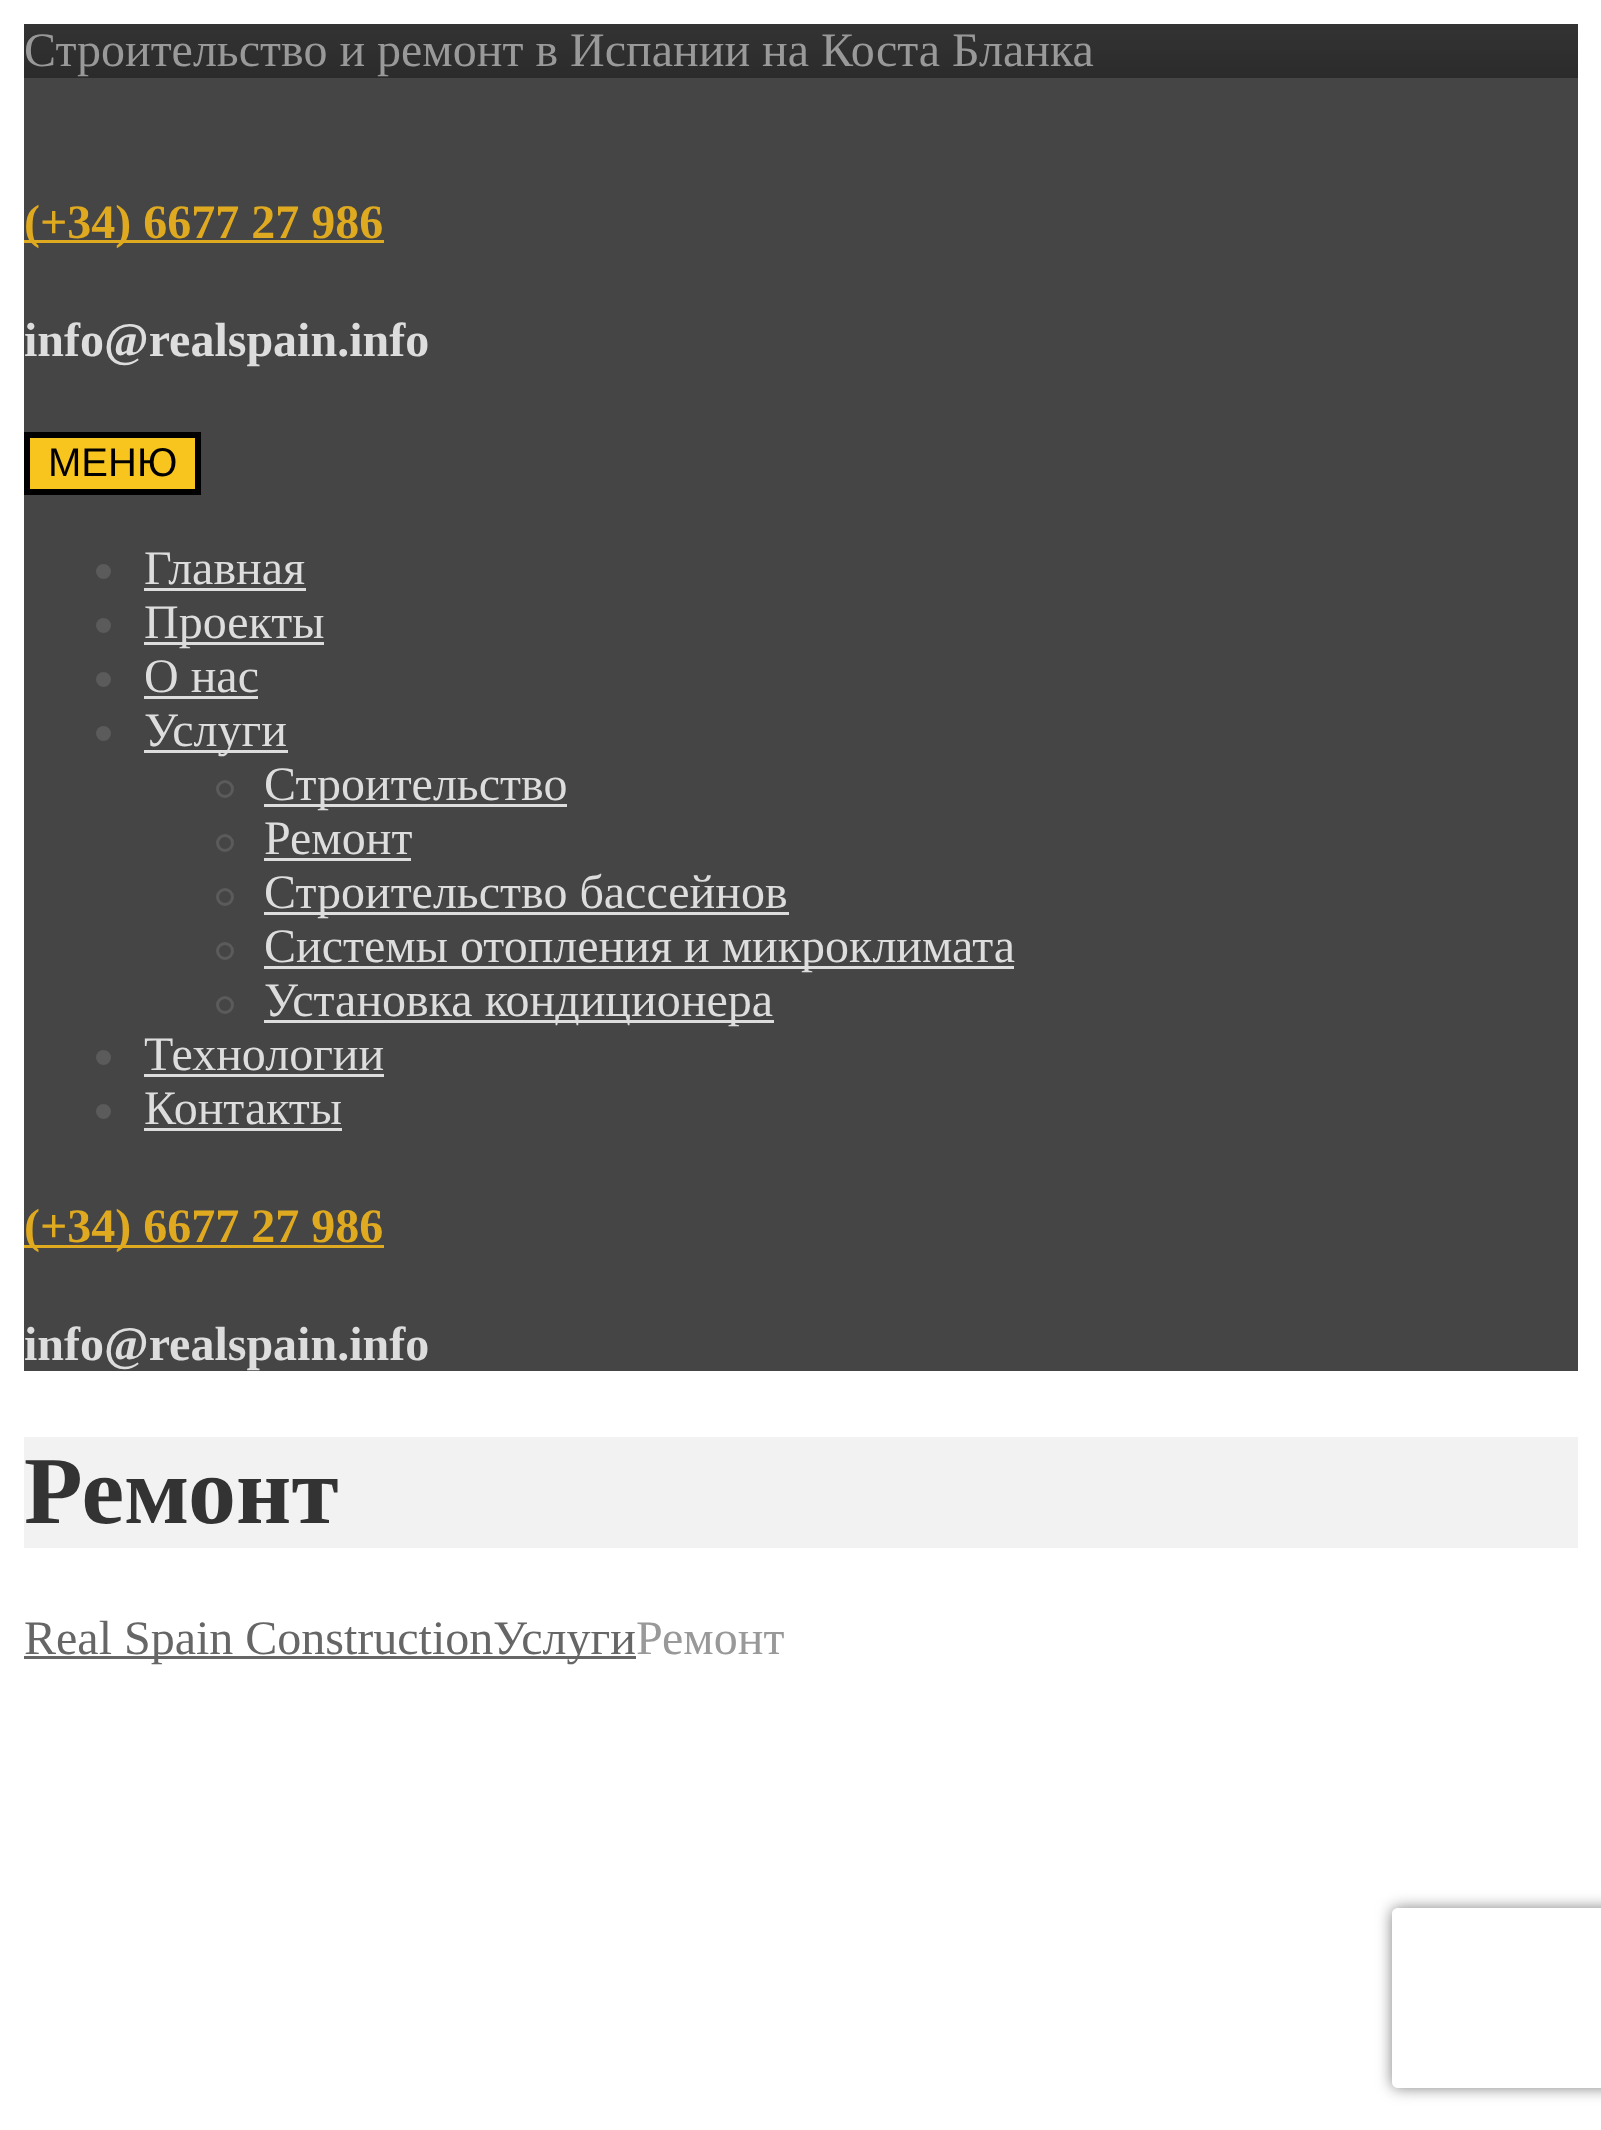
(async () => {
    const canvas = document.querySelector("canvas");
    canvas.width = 1601;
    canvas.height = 2130;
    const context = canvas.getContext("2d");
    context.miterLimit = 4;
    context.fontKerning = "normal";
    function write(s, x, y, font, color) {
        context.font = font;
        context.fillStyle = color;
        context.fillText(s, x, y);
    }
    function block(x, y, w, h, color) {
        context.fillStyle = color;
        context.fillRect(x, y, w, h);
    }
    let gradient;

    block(0, 0, 1601, 2130, "rgb(255, 255, 255)");
    gradient = context.createLinearGradient(801, 24, 801, 78);
    gradient.addColorStop(0, "rgb(51, 51, 51)");
    gradient.addColorStop(1, "rgb(43, 43, 43)");
    context.fillStyle = gradient;
    context.fillRect(24, 24, 1554, 54);
    write("Строительство и ремонт в Испании на Коста Бланка", 24, 66, "48px Liberation Serif", "rgb(153, 153, 153)");
    block(24, 78, 1554, 1293, "rgb(69, 69, 69)");
    block(24, 240, 360, 3, "rgb(224, 170, 32)");
    write("(+34) 6677 27 986", 24, 238, "bold 48px Liberation Serif", "rgb(224, 170, 32)");
    write("info@realspain.info", 24, 356, "bold 48px Liberation Serif", "rgb(221, 221, 221)");
    context.fillStyle = "rgb(247, 197, 30)";
    context.beginPath();
    context.rect(27, 435, 171, 57);
    context.fill();
    context.strokeStyle = "rgb(0, 0, 0)";
    context.lineWidth = 6;
    context.stroke();
    write("МЕНЮ", 48, 476, "40px Liberation Sans", "rgb(0, 0, 0)");
    context.fillStyle = "rgb(91, 91, 91)";
    context.beginPath();
    context.arc(103.5, 571.5, 7.5, 0, Math.PI * 2);
    context.fill();
    write("Главная", 144, 584, "48px Liberation Serif", "rgb(221, 221, 221)");
    block(144, 588, 162, 3, "rgb(221, 221, 221)");
    context.fillStyle = "rgb(91, 91, 91)";
    context.beginPath();
    context.arc(103.5, 625.5, 7.5, 0, Math.PI * 2);
    context.fill();
    block(144, 642, 180, 3, "rgb(221, 221, 221)");
    write("Проекты", 144, 638, "48px Liberation Serif", "rgb(221, 221, 221)");
    context.fillStyle = "rgb(91, 91, 91)";
    context.beginPath();
    context.arc(103.5, 679.5, 7.5, 0, Math.PI * 2);
    context.fill();
    write("О нас", 144, 692, "48px Liberation Serif", "rgb(221, 221, 221)");
    block(144, 696, 114, 3, "rgb(221, 221, 221)");
    context.fillStyle = "rgb(91, 91, 91)";
    context.beginPath();
    context.arc(103.5, 733.5, 7.5, 0, Math.PI * 2);
    context.fill();
    block(144, 750, 144, 3, "rgb(221, 221, 221)");
    write("Услуги", 144, 746, "48px Liberation Serif", "rgb(221, 221, 221)");
    context.beginPath();
    context.arc(225, 789, 7.5, 0, Math.PI * 2);
    context.strokeStyle = "rgb(91, 91, 91)";
    context.lineWidth = 3;
    context.stroke();
    block(264, 804, 303, 3, "rgb(221, 221, 221)");
    write("Строительство", 264, 800, "48px Liberation Serif", "rgb(221, 221, 221)");
    context.beginPath();
    context.arc(225, 843, 7.5, 0, Math.PI * 2);
    context.stroke();
    write("Ремонт", 264, 854, "48px Liberation Serif", "rgb(221, 221, 221)");
    block(264, 858, 147, 3, "rgb(221, 221, 221)");
    context.beginPath();
    context.arc(225, 897, 7.5, 0, Math.PI * 2);
    context.stroke();
    block(264, 912, 525, 3, "rgb(221, 221, 221)");
    write("Строительство бассейнов", 264, 908, "48px Liberation Serif", "rgb(221, 221, 221)");
    context.beginPath();
    context.arc(225, 951, 7.5, 0, Math.PI * 2);
    context.stroke();
    block(264, 966, 750, 3, "rgb(221, 221, 221)");
    write("Системы отопления и микроклимата", 264, 962, "48px Liberation Serif", "rgb(221, 221, 221)");
    context.beginPath();
    context.arc(225, 1005, 7.5, 0, Math.PI * 2);
    context.stroke();
    block(264, 1020, 510, 3, "rgb(221, 221, 221)");
    write("Установка кондиционера", 264, 1016, "48px Liberation Serif", "rgb(221, 221, 221)");
    context.fillStyle = "rgb(91, 91, 91)";
    context.beginPath();
    context.arc(103.5, 1057.5, 7.5, 0, Math.PI * 2);
    context.fill();
    write("Технологии", 144, 1070, "48px Liberation Serif", "rgb(221, 221, 221)");
    block(144, 1074, 240, 3, "rgb(221, 221, 221)");
    context.fillStyle = "rgb(91, 91, 91)";
    context.beginPath();
    context.arc(103.5, 1111.5, 7.5, 0, Math.PI * 2);
    context.fill();
    write("Контакты", 144, 1124, "48px Liberation Serif", "rgb(221, 221, 221)");
    block(144, 1128, 198, 3, "rgb(221, 221, 221)");
    block(24, 1245, 360, 3, "rgb(224, 170, 32)");
    write("(+34) 6677 27 986", 24, 1242, "bold 48px Liberation Serif", "rgb(224, 170, 32)");
    write("info@realspain.info", 24, 1360, "bold 48px Liberation Serif", "rgb(221, 221, 221)");
    block(24, 1437, 1554, 111, "rgb(242, 242, 242)");
    write("Ремонт", 24, 1523, "bold 96px Liberation Serif", "rgb(51, 51, 51)");
    block(24, 1656, 468, 3, "rgb(102, 102, 102)");
    write("Real Spain Construction", 24, 1654, "48px Liberation Serif", "rgb(102, 102, 102)");
    block(492, 1656, 144, 3, "rgb(102, 102, 102)");
    write("Услуги", 493, 1654, "48px Liberation Serif", "rgb(102, 102, 102)");
    write("Ремонт", 636, 1654, "48px Liberation Serif", "rgb(153, 153, 153)");
    context.save();
    context.beginPath();
    context.moveTo(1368, 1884);
    context.lineTo(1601, 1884);
    context.lineTo(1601, 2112);
    context.lineTo(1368, 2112);
    context.closePath();
    context.moveTo(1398, 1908);
    context.lineTo(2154, 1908);
    context.bezierCurveTo(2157.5, 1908, 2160, 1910.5, 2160, 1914);
    context.lineTo(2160, 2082);
    context.bezierCurveTo(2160, 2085.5, 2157.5, 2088, 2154, 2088);
    context.lineTo(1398, 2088);
    context.bezierCurveTo(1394.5, 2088, 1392, 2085.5, 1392, 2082);
    context.lineTo(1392, 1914);
    context.bezierCurveTo(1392, 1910.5, 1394.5, 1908, 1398, 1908);
    context.closePath();
    context.clip("evenodd");
    context.fillStyle = "rgb(128, 128, 128)";
    context.filter = "blur(7.5px)";
    context.beginPath();
    context.roundRect(1392, 1908, 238, 180, 6);
    context.fill();
    context.filter = "none";
    context.restore();
})();
